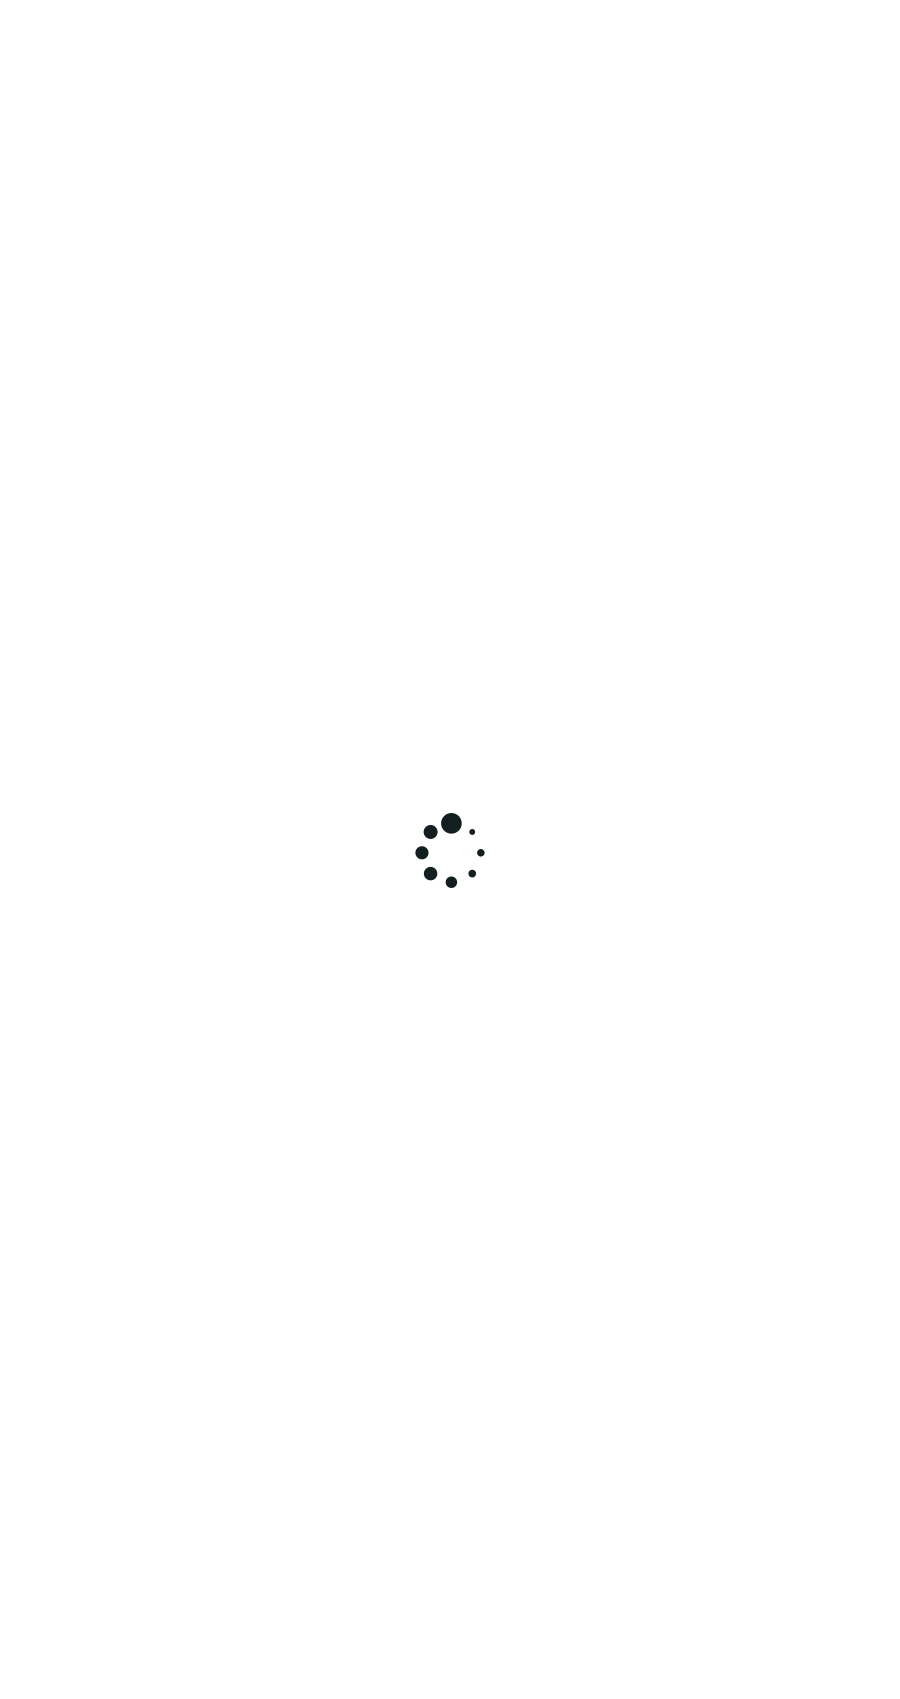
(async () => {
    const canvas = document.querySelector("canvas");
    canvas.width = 900;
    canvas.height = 1699;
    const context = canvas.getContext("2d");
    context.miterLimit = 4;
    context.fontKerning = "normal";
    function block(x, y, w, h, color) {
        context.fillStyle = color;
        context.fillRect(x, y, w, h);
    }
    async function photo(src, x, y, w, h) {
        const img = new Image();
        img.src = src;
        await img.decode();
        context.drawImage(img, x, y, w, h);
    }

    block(0, 0, 900, 1699, "rgb(255, 255, 255)");
    await photo("media/1.png", 415, 813, 70, 75);
})();
